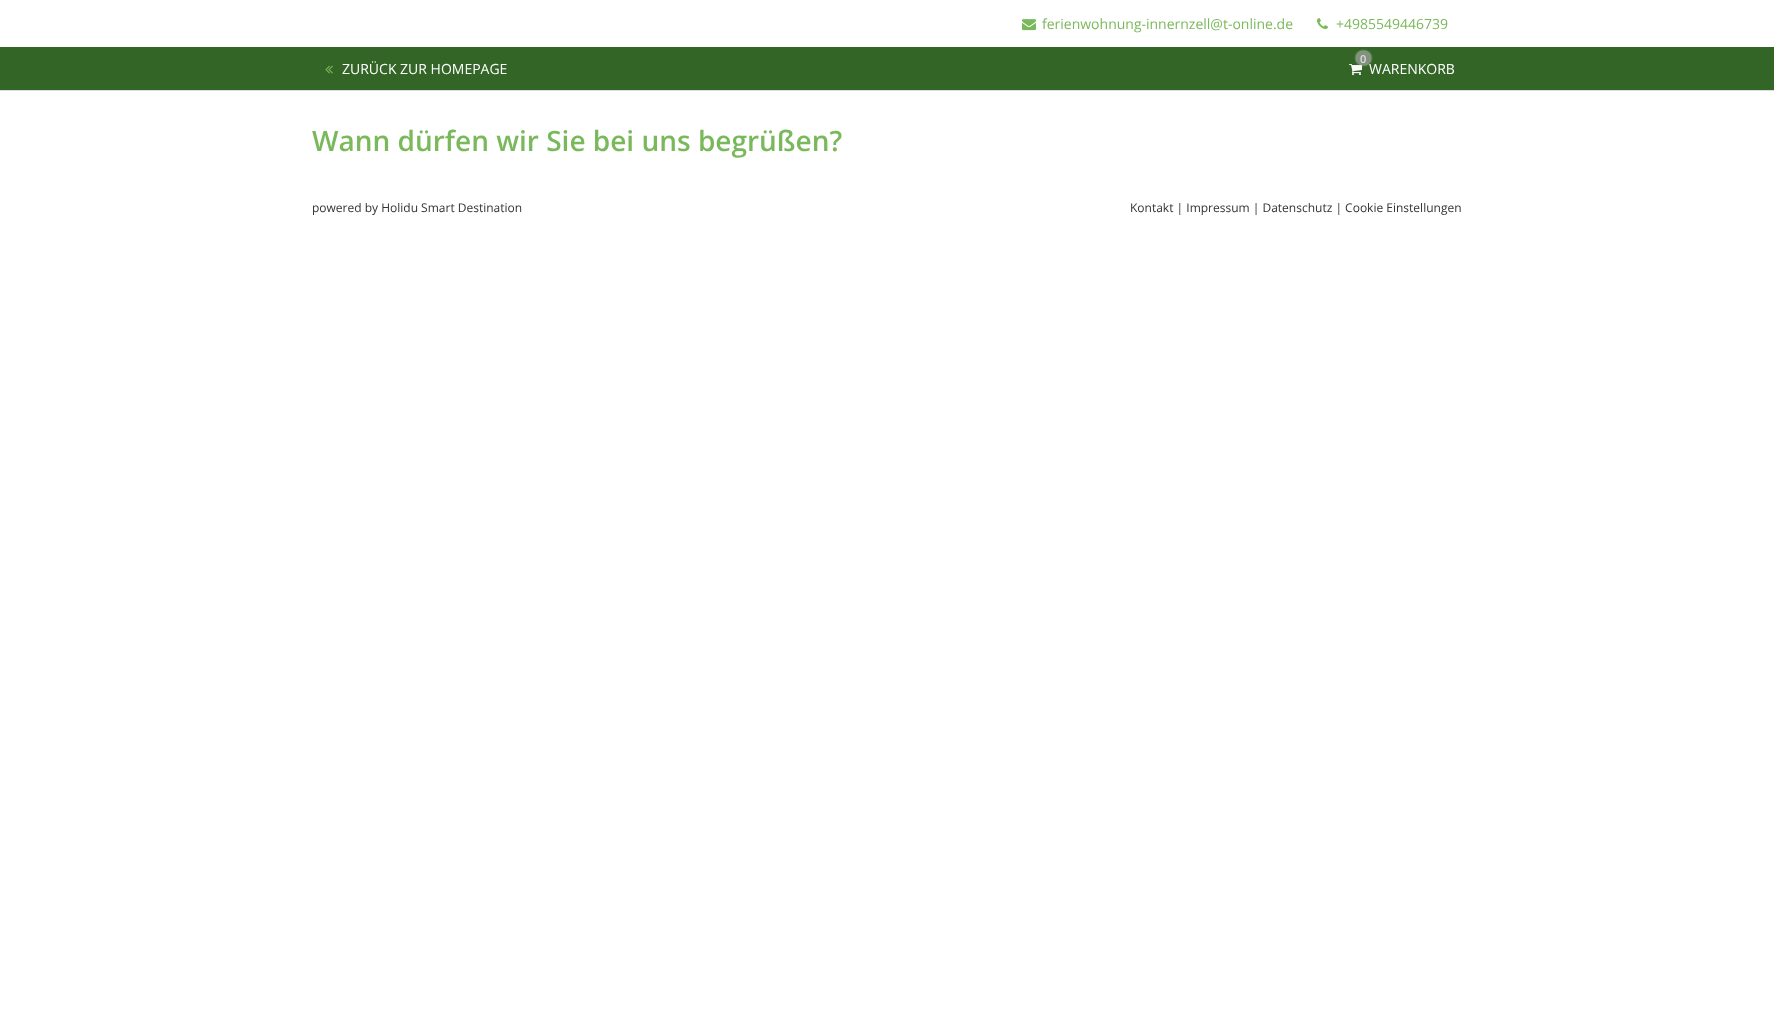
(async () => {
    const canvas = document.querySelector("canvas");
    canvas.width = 1774;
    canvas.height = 1034;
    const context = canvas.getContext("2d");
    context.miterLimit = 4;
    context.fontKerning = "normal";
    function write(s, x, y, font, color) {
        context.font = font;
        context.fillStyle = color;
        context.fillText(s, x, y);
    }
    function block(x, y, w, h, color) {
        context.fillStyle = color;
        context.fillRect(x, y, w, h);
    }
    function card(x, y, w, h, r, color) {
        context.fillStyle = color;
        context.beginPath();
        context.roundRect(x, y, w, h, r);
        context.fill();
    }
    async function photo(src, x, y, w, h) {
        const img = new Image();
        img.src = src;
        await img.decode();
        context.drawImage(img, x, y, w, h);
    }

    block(0, 0, 1774, 1034, "rgb(255, 255, 255)");
    await photo("media/1.png", 1022, 19, 14, 12);
    write("ferienwohnung-innernzell@t-online.de", 1042, 29, "14px Open Sans", "rgb(122, 185, 91)");
    await photo("media/2.png", 1317, 18, 11, 12);
    write("+4985549446739", 1336, 29, "14px Open Sans", "rgb(122, 185, 91)");
    block(0, 47, 1774, 43, "rgb(51, 102, 38)");
    block(0, 90, 1774, 1, "rgb(221, 221, 221)");
    await photo("media/3.png", 325, 65, 8, 9);
    write("ZURÜCK ZUR HOMEPAGE", 342, 74, "14px Open Sans", "rgb(255, 255, 255)");
    await photo("media/4.png", 1349, 64, 13, 12);
    context.fillStyle = "rgba(255, 255, 255, 0.8)";
    context.filter = "blur(1px)";
    context.beginPath();
    context.roundRect(1356, 51, 15, 14, 7);
    context.fill();
    context.filter = "none";
    write("WARENKORB", 1369, 74, "14px Open Sans", "rgb(255, 255, 255)");
    card(1356, 51, 15, 14, 7, "rgb(133, 143, 130)");
    write("0", 1360, 63, "600 11px Open Sans", "rgb(214, 224, 212)");
    write("Wann dürfen wir Sie bei uns begrüßen?", 312, 151, "600 28px Open Sans", "rgb(122, 185, 91)");
    write("powered by Holidu Smart Destination", 312, 212, "12px Open Sans", "rgb(51, 51, 51)");
    write("Kontakt | Impressum | Datenschutz | Cookie Einstellungen", 1130, 212, "12px Open Sans", "rgb(51, 51, 51)");
})();
